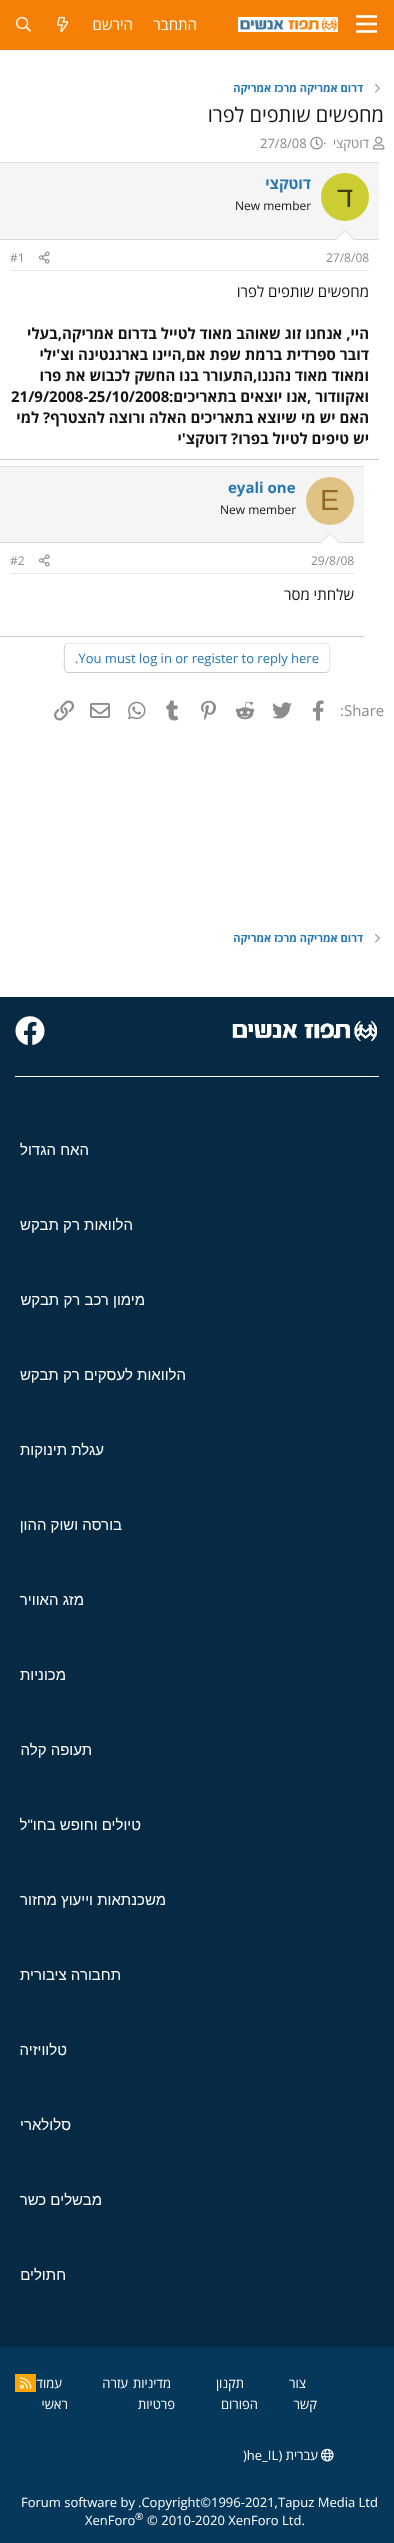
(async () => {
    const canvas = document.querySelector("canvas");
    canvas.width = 394;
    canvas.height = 2543;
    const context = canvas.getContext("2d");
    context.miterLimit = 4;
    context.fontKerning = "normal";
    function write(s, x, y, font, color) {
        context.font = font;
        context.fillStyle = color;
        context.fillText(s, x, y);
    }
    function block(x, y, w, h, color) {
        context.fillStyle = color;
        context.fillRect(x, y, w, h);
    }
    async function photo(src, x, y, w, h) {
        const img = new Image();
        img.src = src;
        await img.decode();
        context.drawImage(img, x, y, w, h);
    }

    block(0, 0, 394, 2543, "rgb(255, 255, 255)");
    block(0, 0, 394, 50, "rgb(246, 128, 5)");
    await photo("media/1.png", 356, 15, 21, 18);
    await photo("media/2.png", 238, 17, 100, 15);
    context.direction = "rtl";
    write("התחבר", 197, 30, "15px Open Sans", "rgb(255, 255, 255)");
    write("הירשם", 133, 30, "15px Open Sans", "rgb(255, 255, 255)");
    await photo("media/3.png", 57, 16, 12, 16);
    await photo("media/4.png", 16, 16, 15, 16);
    await photo("media/5.png", 375, 84, 5, 9);
    write("דרום אמריקה מרכז אמריקה", 363, 92, "bold 11px Open Sans", "rgb(37, 119, 177)");
    write("מחפשים שותפים לפרו", 384, 122, "20px Open Sans", "rgb(20, 20, 20)");
    await photo("media/6.png", 373, 136, 12, 14);
    write("דוטקצי", 369, 148, "13px Open Sans", "rgb(140, 140, 140)");
    context.direction = "ltr";
    write("·", 323, 148, "13px Open Sans", "rgb(140, 140, 140)");
    await photo("media/7.png", 310, 136, 13, 14);
    write("27/8/08", 260, 148, "13px Open Sans", "rgb(140, 140, 140)");
    block(0, 162, 379, 1, "rgb(223, 223, 223)");
    block(0, 459, 379, 1, "rgb(203, 203, 203)");
    block(0, 163, 379, 76, "rgb(245, 245, 245)");
    block(0, 239, 379, 1, "rgb(216, 216, 216)");
    context.fillStyle = "rgb(204, 204, 51)";
    context.beginPath();
    context.arc(345, 197, 24, 0, Math.PI * 2);
    context.fill();
    context.direction = "rtl";
    write("ד", 353, 207, "29px Liberation Sans", "rgb(61, 61, 15)");
    write("דוטקצי", 311, 189, "bold 15px Open Sans", "rgb(37, 119, 177)");
    context.direction = "ltr";
    write("New member", 235, 210, "12px Open Sans", "rgb(20, 20, 20)");
    context.fillStyle = "rgb(216, 216, 216)";
    context.beginPath();
    context.moveTo(355, 240);
    context.lineTo(335, 240);
    context.lineTo(345, 230);
    context.closePath();
    context.fill();
    context.fillStyle = "rgb(254, 254, 254)";
    context.beginPath();
    context.moveTo(354, 240);
    context.lineTo(336, 240);
    context.lineTo(345, 231);
    context.closePath();
    context.fill();
    block(10, 270, 359, 1, "rgb(231, 231, 231)");
    write("27/8/08", 326, 262, "12px Open Sans", "rgb(140, 140, 140)");
    await photo("media/8.png", 39, 251, 11, 13);
    write("#1", 10, 262, "12px Open Sans", "rgb(140, 140, 140)");
    context.direction = "rtl";
    write("מחפשים שותפים לפרו", 369, 297, "15px Open Sans", "rgb(20, 20, 20)");
    write("היי, אנחנו זוג שאוהב מאוד לטייל בדרום אמריקה,בעלי", 369, 339, "bold 15px Open Sans", "rgb(20, 20, 20)");
    write("דובר ספרדית ברמת שפת אם,היינו בארגנטינה וצ'ילי", 369, 360, "bold 15px Open Sans", "rgb(20, 20, 20)");
    write("ומאוד מאוד", 369, 381, "bold 15px Open Sans", "rgb(20, 20, 20)");
    write("נהננו,התעורר בנו החשק לכבוש את פרו", 291, 381, "bold 15px Open Sans", "rgb(20, 20, 20)");
    write("ואקוודור ,אנו יוצאים בתאריכים:", 369, 402, "bold 15px Open Sans", "rgb(20, 20, 20)");
    context.direction = "ltr";
    write("21/9/2008-25/10/2008", 11, 402, "bold 15px Open Sans", "rgb(20, 20, 20)");
    context.direction = "rtl";
    write("האם יש מי שיוצא בתאריכים האלה ורוצה להצטרף? למי", 369, 423, "bold 15px Open Sans", "rgb(20, 20, 20)");
    write("יש טיפים לטיול בפרו? דוטקצ'י", 369, 444, "bold 15px Open Sans", "rgb(20, 20, 20)");
    block(0, 466, 364, 1, "rgb(223, 223, 223)");
    block(0, 636, 364, 1, "rgb(203, 203, 203)");
    block(0, 467, 364, 75, "rgb(245, 245, 245)");
    block(0, 542, 364, 1, "rgb(216, 216, 216)");
    context.fillStyle = "rgb(224, 194, 133)";
    context.beginPath();
    context.arc(330, 501, 24, 0, Math.PI * 2);
    context.fill();
    context.direction = "ltr";
    write("E", 320, 510, "29px Liberation Sans", "rgb(143, 107, 36)");
    write("eyali one", 228, 493, "bold 15px Open Sans", "rgb(37, 119, 177)");
    write("New member", 220, 514, "12px Open Sans", "rgb(20, 20, 20)");
    context.fillStyle = "rgb(216, 216, 216)";
    context.beginPath();
    context.moveTo(340, 543);
    context.lineTo(320, 543);
    context.lineTo(330, 533);
    context.closePath();
    context.fill();
    context.fillStyle = "rgb(254, 254, 254)";
    context.beginPath();
    context.moveTo(339, 543);
    context.lineTo(321, 543);
    context.lineTo(330, 534);
    context.closePath();
    context.fill();
    block(10, 573, 344, 1, "rgb(231, 231, 231)");
    write("29/8/08", 311, 565, "12px Open Sans", "rgb(140, 140, 140)");
    await photo("media/8.png", 39, 554, 11, 13);
    write("#2", 10, 565, "12px Open Sans", "rgb(140, 140, 140)");
    context.direction = "rtl";
    write("שלחתי מסר", 354, 600, "15px Open Sans", "rgb(20, 20, 20)");
    context.beginPath();
    context.moveTo(65.5, 644.5);
    context.lineTo(68, 643.5);
    context.lineTo(326, 643.5);
    context.lineTo(328.5, 644.5);
    context.bezierCurveTo(330.5, 646.5, 329.5, 655, 329.5, 658);
    context.bezierCurveTo(329.5, 661, 330.5, 669.5, 328.5, 671.5);
    context.strokeStyle = "rgb(229, 229, 229)";
    context.stroke();
    context.beginPath();
    context.moveTo(328.5, 671.5);
    context.lineTo(326, 672.5);
    context.lineTo(68, 672.5);
    context.lineTo(65.5, 671.5);
    context.bezierCurveTo(63.5, 669.5, 64.5, 661, 64.5, 658);
    context.bezierCurveTo(64.5, 655, 63.5, 646.5, 65.5, 644.5);
    context.strokeStyle = "rgb(203, 203, 203)";
    context.stroke();
    context.direction = "ltr";
    write(".You must log in or register to reply here", 75, 663, "13px Open Sans", "rgb(37, 119, 177)");
    write(":Share", 340, 716, "15px Open Sans", "rgb(140, 140, 140)");
    await photo("media/9.png", 312, 700, 12, 21);
    await photo("media/10.png", 272, 702, 20, 17);
    await photo("media/11.png", 235, 701, 20, 19);
    await photo("media/12.png", 201, 700, 15, 21);
    await photo("media/13.png", 166, 700, 13, 21);
    await photo("media/14.png", 128, 701, 18, 19);
    await photo("media/15.png", 90, 703, 20, 15);
    await photo("media/16.png", 54, 700, 20, 21);
    await photo("media/5.png", 375, 934, 5, 9);
    context.direction = "rtl";
    write("דרום אמריקה מרכז אמריקה", 363, 942, "bold 11px Open Sans", "rgb(37, 119, 177)");
    block(0, 997, 394, 1350, "rgb(6, 42, 67)");
    block(15, 1076, 364, 1, "rgb(255, 255, 255)");
    await photo("media/17.png", 232, 1021, 145, 20);
    await photo("media/18.png", 15, 1016, 30, 29);
    write("האח הגדול", 89, 1155, "15px Liberation Sans", "rgb(255, 255, 255)");
    write("הלוואות רק תבקש", 133, 1230, "15px Liberation Sans", "rgb(255, 255, 255)");
    write("מימון רכב רק תבקש", 145, 1305, "15px Liberation Sans", "rgb(255, 255, 255)");
    write("הלוואות לעסקים רק תבקש", 186, 1380, "15px Liberation Sans", "rgb(255, 255, 255)");
    write("עגלת תינוקות", 104, 1455, "15px Liberation Sans", "rgb(255, 255, 255)");
    write("בורסה ושוק ההון", 122, 1530, "15px Liberation Sans", "rgb(255, 255, 255)");
    write("מזג האוויר", 84, 1605, "15px Liberation Sans", "rgb(255, 255, 255)");
    write("מכוניות", 66, 1680, "15px Liberation Sans", "rgb(255, 255, 255)");
    write("תעופה קלה", 92, 1755, "15px Liberation Sans", "rgb(255, 255, 255)");
    write("טיולים וחופש בחו\"ל", 141, 1830, "15px Liberation Sans", "rgb(255, 255, 255)");
    write("משכנתאות וייעוץ מחזור", 166, 1905, "15px Liberation Sans", "rgb(255, 255, 255)");
    write("תחבורה ציבורית", 121, 1980, "15px Liberation Sans", "rgb(255, 255, 255)");
    write("טלוויזיה", 67, 2055, "15px Liberation Sans", "rgb(255, 255, 255)");
    write("סלולארי", 71, 2130, "15px Liberation Sans", "rgb(255, 255, 255)");
    write("מבשלים כשר", 102, 2205, "15px Liberation Sans", "rgb(255, 255, 255)");
    write("חתולים", 66, 2280, "15px Liberation Sans", "rgb(255, 255, 255)");
    block(0, 2347, 394, 196, "rgb(5, 56, 90)");
    write("צור", 306, 2388, "13px Open Sans", "rgb(255, 255, 255)");
    write("קשר", 317, 2409, "13px Open Sans", "rgb(255, 255, 255)");
    write("תקנון", 244, 2388, "13px Open Sans", "rgb(255, 255, 255)");
    write("הפורום", 258, 2409, "13px Open Sans", "rgb(255, 255, 255)");
    write("מדיניות", 171, 2388, "13px Open Sans", "rgb(255, 255, 255)");
    write("פרטיות", 175, 2409, "13px Open Sans", "rgb(255, 255, 255)");
    write("עזרה", 128, 2388, "13px Open Sans", "rgb(255, 255, 255)");
    write("עמוד", 62, 2388, "13px Open Sans", "rgb(255, 255, 255)");
    write("ראשי", 68, 2409, "13px Open Sans", "rgb(255, 255, 255)");
    block(15, 2374, 21, 18, "rgb(255, 165, 0)");
    await photo("media/19.png", 20, 2377, 12, 12);
    await photo("media/20.png", 321, 2448, 13, 14);
    write("עברית (", 318, 2460, "13px Open Sans", "rgb(255, 255, 255)");
    context.direction = "ltr";
    write(")he_IL", 243, 2460, "13px Open Sans", "rgb(255, 255, 255)");
    write(".Copyright©1996-2021,Tapuz Media Ltd", 138, 2507, "13px Open Sans", "rgb(255, 255, 255)");
    write("Forum software by", 21, 2507, "13px Open Sans", "rgb(255, 255, 255)");
    write("© 2010-2020 XenForo Ltd.", 147, 2525, "13px Open Sans", "rgb(255, 255, 255)");
    write("®", 135, 2520, "10px Open Sans", "rgb(255, 255, 255)");
    write("XenForo", 85, 2525, "13px Open Sans", "rgb(255, 255, 255)");
})();
